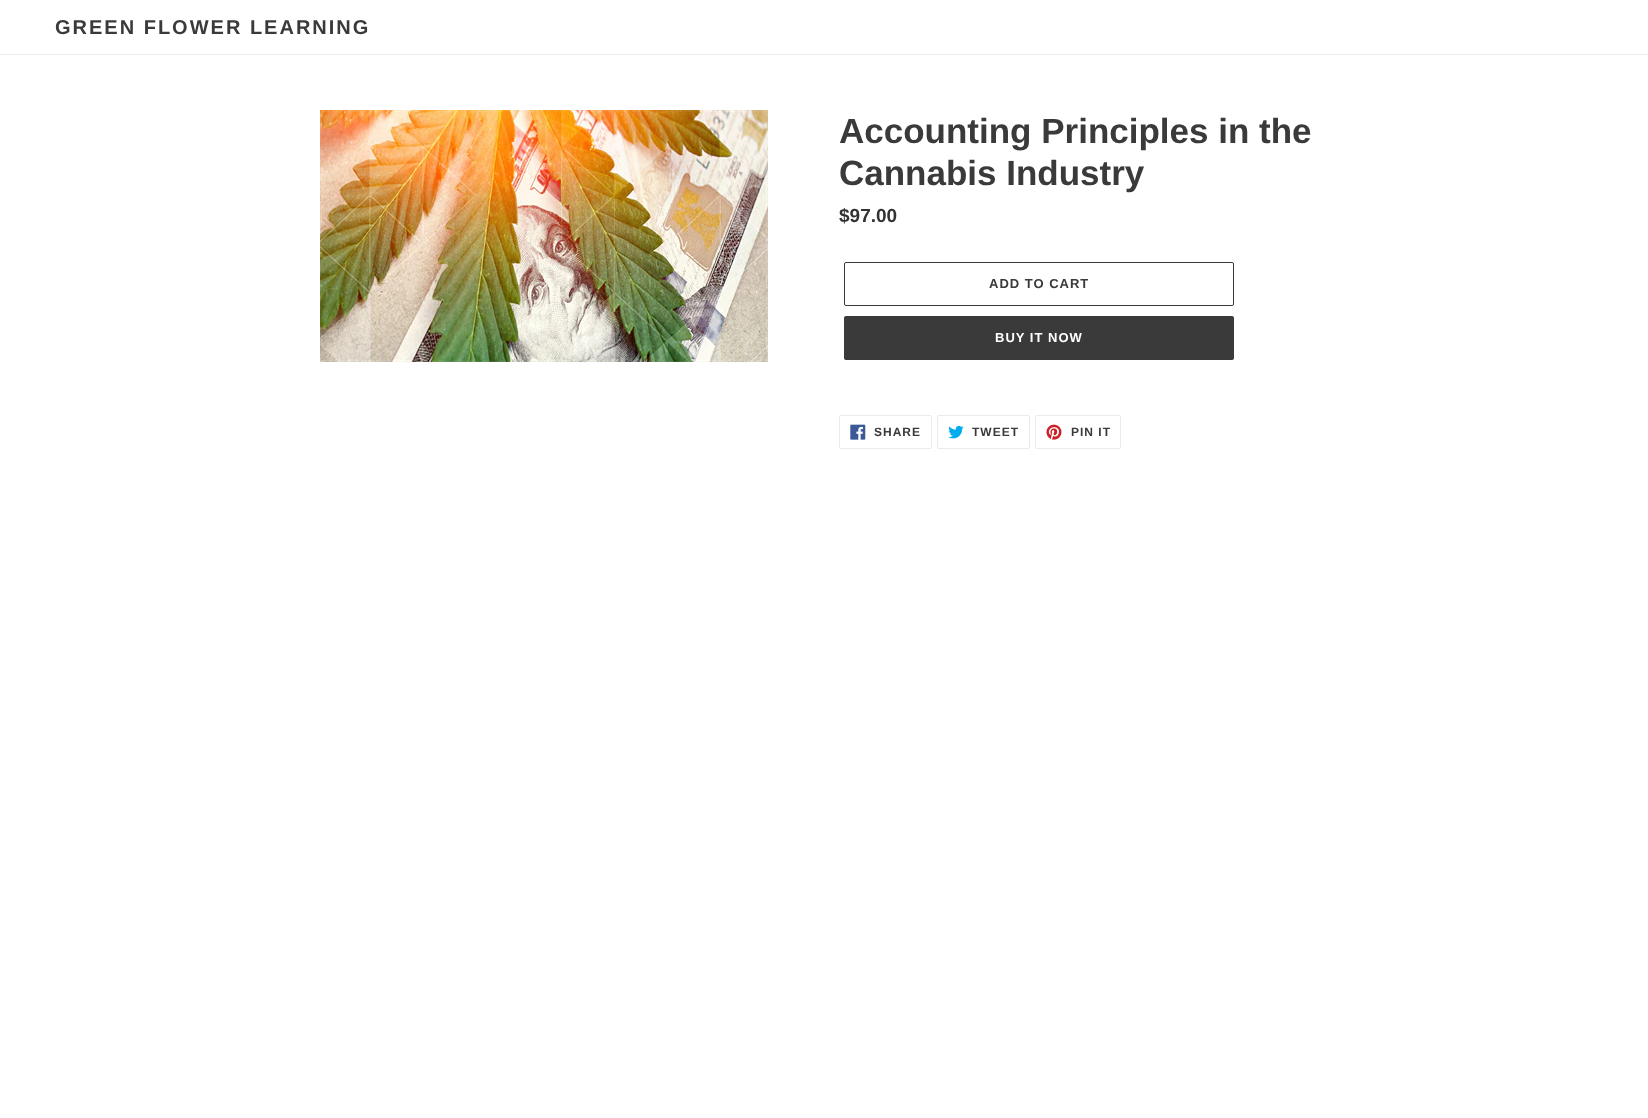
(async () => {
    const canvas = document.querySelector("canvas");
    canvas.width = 1648;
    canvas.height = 1118;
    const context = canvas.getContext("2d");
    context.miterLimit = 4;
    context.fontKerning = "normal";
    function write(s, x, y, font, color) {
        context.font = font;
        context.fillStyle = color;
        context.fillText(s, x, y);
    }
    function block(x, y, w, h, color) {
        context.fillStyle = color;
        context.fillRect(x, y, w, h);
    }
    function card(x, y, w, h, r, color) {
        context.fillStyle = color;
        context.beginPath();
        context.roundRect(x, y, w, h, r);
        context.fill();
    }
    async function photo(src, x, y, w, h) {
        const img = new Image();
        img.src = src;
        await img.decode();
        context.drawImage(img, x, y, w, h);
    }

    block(0, 0, 1648, 1118, "rgb(255, 255, 255)");
    block(0, 54, 1648, 1, "rgb(235, 235, 235)");
    context.letterSpacing = "2px";
    write("GREEN FLOWER LEARNING", 55, 34, "bold 20px Liberation Sans", "rgb(58, 58, 58)");
    await photo("media/1.png", 320, 110, 448, 252);
    context.letterSpacing = "0px";
    write("Accounting Principles in the", 839, 143, "bold 35px Liberation Sans", "rgb(58, 58, 58)");
    write("Cannabis Industry", 839, 185, "bold 35px Liberation Sans", "rgb(58, 58, 58)");
    write("$97.00", 839, 222, "bold 19px Liberation Sans", "rgb(51, 50, 50)");
    context.beginPath();
    context.roundRect(844.5, 262.5, 389, 43, 1.5);
    context.strokeStyle = "rgb(58, 58, 58)";
    context.stroke();
    context.letterSpacing = "1px";
    write("ADD TO CART", 989, 288, "bold 13px Liberation Sans", "rgb(58, 58, 58)");
    card(844, 316, 390, 44, 2, "rgb(58, 58, 58)");
    write("BUY IT NOW", 995, 342, "bold 13px Liberation Sans", "rgb(255, 255, 255)");
    context.beginPath();
    context.roundRect(839.5, 415.5, 92, 33, 1.5);
    context.strokeStyle = "rgb(235, 235, 235)";
    context.stroke();
    await photo("media/2.png", 850, 424, 16, 16);
    write("SHARE", 874, 436, "bold 12px Liberation Sans", "rgb(58, 58, 58)");
    context.beginPath();
    context.roundRect(937.5, 415.5, 92, 33, 1.5);
    context.stroke();
    await photo("media/3.png", 948, 425, 16, 14);
    write("TWEET", 972, 436, "bold 12px Liberation Sans", "rgb(58, 58, 58)");
    context.beginPath();
    context.roundRect(1035.5, 415.5, 85, 33, 1.5);
    context.stroke();
    await photo("media/4.png", 1046, 424, 16, 16);
    write("PIN IT", 1071, 436, "bold 12px Liberation Sans", "rgb(58, 58, 58)");
})();
